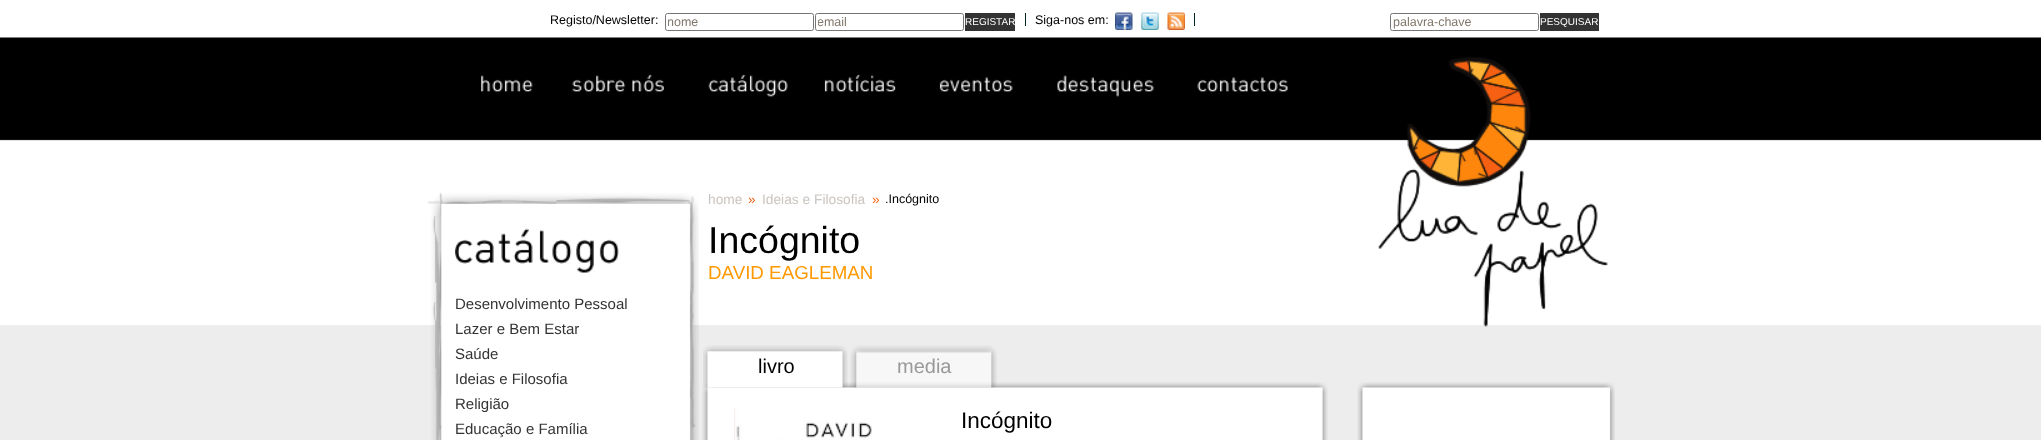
(async () => {
    const canvas = document.querySelector("canvas");
    canvas.width = 2041;
    canvas.height = 440;
    const context = canvas.getContext("2d");
    context.miterLimit = 4;
    context.fontKerning = "normal";
    function write(s, x, y, font, color) {
        context.font = font;
        context.fillStyle = color;
        context.fillText(s, x, y);
    }
    function block(x, y, w, h, color) {
        context.fillStyle = color;
        context.fillRect(x, y, w, h);
    }
    async function photo(src, x, y, w, h) {
        const img = new Image();
        img.src = src;
        await img.decode();
        context.drawImage(img, x, y, w, h);
    }

    block(0, 0, 2041, 440, "rgb(255, 255, 255)");
    await photo("media/1.png", 0, 37, 2041, 403);
    write("Registo/Newsletter:", 550, 24, "12.5px Liberation Sans", "rgb(0, 0, 0)");
    context.beginPath();
    context.roundRect(665.5, 13.5, 148, 17, 2);
    context.strokeStyle = "rgb(118, 118, 118)";
    context.stroke();
    context.save();
    context.beginPath();
    context.rect(668, 15, 143, 14);
    context.clip();
    write("nome", 667, 26, "12.5px Liberation Sans", "rgb(129, 119, 107)");
    context.restore();
    context.beginPath();
    context.roundRect(815.5, 13.5, 148, 17, 2);
    context.stroke();
    context.save();
    context.beginPath();
    context.rect(818, 15, 143, 14);
    context.clip();
    write("email", 817, 26, "12.5px Liberation Sans", "rgb(129, 119, 107)");
    context.restore();
    block(965, 13, 50, 18, "rgb(51, 51, 51)");
    write("REGISTAR", 965, 25, "10px Liberation Sans", "rgb(255, 255, 255)");
    block(1025, 13, 1, 13, "rgb(0, 36, 33)");
    write("Siga-nos em:", 1035, 24, "12.5px Liberation Sans", "rgb(0, 0, 0)");
    await photo("media/2.png", 1115, 12, 18, 18);
    await photo("media/3.png", 1141, 12, 18, 18);
    await photo("media/4.png", 1167, 12, 18, 18);
    block(1194, 13, 1, 13, "rgb(0, 36, 33)");
    context.beginPath();
    context.roundRect(1390.5, 13.5, 148, 17, 2);
    context.stroke();
    write("palavra-chave", 1393, 26, "12.5px Liberation Sans", "rgb(129, 119, 107)");
    block(1540, 13, 59, 18, "rgb(51, 51, 51)");
    write("PESQUISAR", 1540, 25, "10px Liberation Sans", "rgb(255, 255, 255)");
    await photo("media/5.png", 481, 75, 52, 17);
    await photo("media/6.png", 572, 74, 92, 18);
    await photo("media/7.png", 708, 74, 80, 23);
    await photo("media/8.png", 824, 74, 72, 18);
    await photo("media/9.png", 939, 77, 74, 15);
    await photo("media/10.png", 1057, 75, 97, 22);
    await photo("media/11.png", 1197, 77, 91, 15);
    await photo("media/12.png", 1378, 57, 230, 270);
    await photo("media/13.png", 427, 192, 272, 248);
    await photo("media/14.png", 455, 228, 164, 45);
    write("Desenvolvimento Pessoal", 455, 309, "15px Liberation Sans", "rgb(51, 51, 51)");
    write("Lazer e Bem Estar", 455, 334, "15px Liberation Sans", "rgb(51, 51, 51)");
    write("Saúde", 455, 359, "15px Liberation Sans", "rgb(51, 51, 51)");
    write("Ideias e Filosofia", 455, 384, "15px Liberation Sans", "rgb(51, 51, 51)");
    write("Religião", 455, 409, "15px Liberation Sans", "rgb(51, 51, 51)");
    write("Educação e Família", 455, 434, "15px Liberation Sans", "rgb(51, 51, 51)");
    write("home", 708, 204, "13.75px Liberation Sans", "rgb(202, 197, 192)");
    write("»", 748, 204, "13.75px Liberation Sans", "rgb(246, 95, 19)");
    write("Ideias e Filosofia", 762, 204, "13.75px Liberation Sans", "rgb(202, 197, 192)");
    write("»", 872, 204, "13.75px Liberation Sans", "rgb(246, 95, 19)");
    write(".Incógnito", 885, 203, "12.5px Liberation Sans", "rgb(0, 0, 0)");
    write("Incógnito", 708, 253, "37.5px Liberation Sans", "rgb(0, 0, 0)");
    write("DAVID EAGLEMAN", 708, 279, "18.75px Liberation Sans", "rgb(255, 153, 0)");
    await photo("media/15.png", 702, 382, 626, 58);
    await photo("media/16.png", 703, 345, 145, 43);
    write("livro", 758, 373, "20px Liberation Sans", "rgb(0, 0, 0)");
    await photo("media/17.png", 850, 345, 147, 43);
    write("media", 897, 373, "20px Liberation Sans", "rgb(153, 153, 153)");
    await photo("media/18.png", 734, 407, 138, 33);
    write("Incógnito", 961, 428, "22.5px Liberation Sans", "rgb(0, 0, 0)");
    await photo("media/19.png", 1357, 382, 258, 58);
})();
